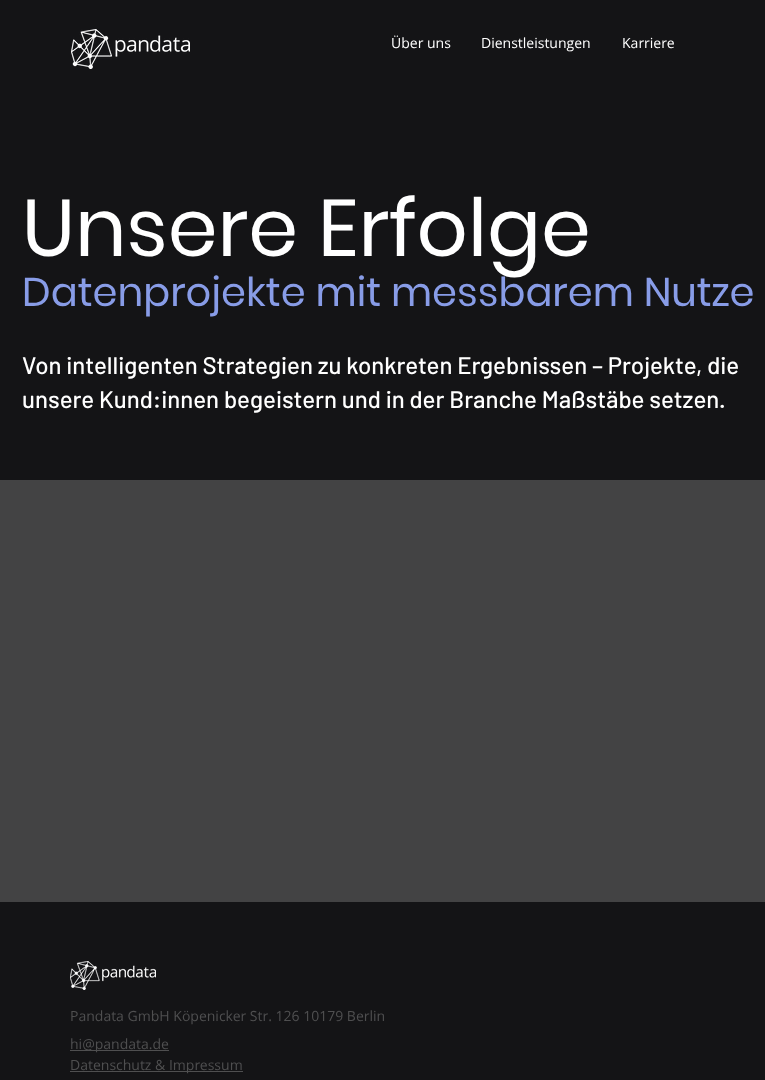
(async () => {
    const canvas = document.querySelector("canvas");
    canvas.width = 765;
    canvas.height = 1080;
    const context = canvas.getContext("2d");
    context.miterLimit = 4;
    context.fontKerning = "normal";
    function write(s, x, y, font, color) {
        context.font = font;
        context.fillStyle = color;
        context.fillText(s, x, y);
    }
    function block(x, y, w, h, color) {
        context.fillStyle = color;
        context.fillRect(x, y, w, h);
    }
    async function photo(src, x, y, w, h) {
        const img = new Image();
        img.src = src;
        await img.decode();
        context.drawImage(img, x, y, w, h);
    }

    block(0, 0, 765, 1080, "rgb(20, 20, 22)");
    await photo("media/1.png", 71, 29, 119, 40);
    write("Über uns", 391, 48, "14px Open Sans", "rgb(255, 255, 255)");
    write("Dienstleistungen", 481, 48, "14px Open Sans", "rgb(255, 255, 255)");
    write("Karriere", 622, 48, "14px Open Sans", "rgb(255, 255, 255)");
    write("Unsere Erfolge", 22, 256, "80px Poppins", "rgb(255, 255, 255)");
    write("Datenprojekte mit messbarem Nutze", 22, 306, "40px Poppins", "rgb(136, 156, 231)");
    write("Von intelligenten Strategien zu konkreten Ergebnissen – Projekte, die", 22, 374, "500 24px Barlow", "rgb(255, 255, 255)");
    write("unsere Kund:innen begeistern und in der Branche Maßstäbe setzen.", 22, 408, "500 24px Barlow", "rgb(255, 255, 255)");
    block(0, 480, 765, 422, "rgb(67, 67, 68)");
    await photo("media/2.png", 70, 961, 86, 29);
    write("Pandata GmbH Köpenicker Str. 126 10179 Berlin", 70, 1021, "14px Open Sans", "rgb(79, 79, 80)");
    block(70, 1050, 99, 1, "rgb(79, 79, 80)");
    write("hi@pandata.de", 70, 1049, "14px Open Sans", "rgb(79, 79, 80)");
    block(70, 1071, 173, 1, "rgb(79, 79, 80)");
    write("Datenschutz & Impressum", 70, 1070, "14px Open Sans", "rgb(79, 79, 80)");
})();
